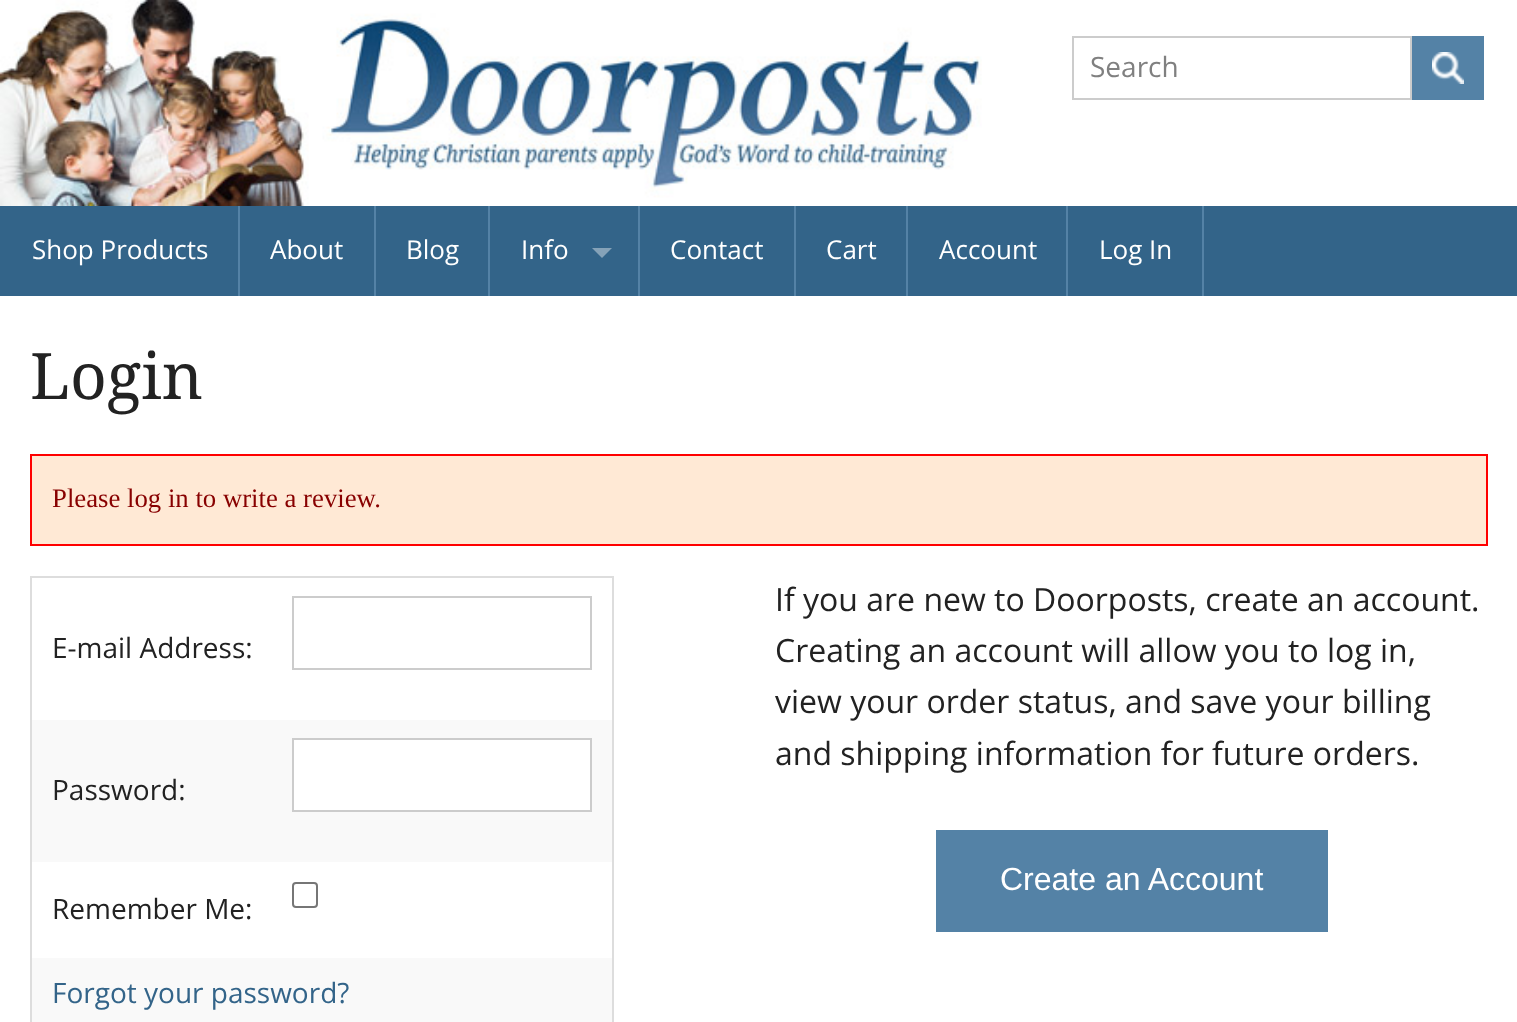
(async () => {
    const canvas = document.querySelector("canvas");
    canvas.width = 1517;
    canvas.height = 1022;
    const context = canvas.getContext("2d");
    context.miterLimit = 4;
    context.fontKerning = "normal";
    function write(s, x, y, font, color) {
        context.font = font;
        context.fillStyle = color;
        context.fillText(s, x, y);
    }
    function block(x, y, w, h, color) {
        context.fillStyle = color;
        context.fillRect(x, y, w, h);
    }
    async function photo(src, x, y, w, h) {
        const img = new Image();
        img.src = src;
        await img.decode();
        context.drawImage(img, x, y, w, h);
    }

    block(0, 0, 1517, 1022, "rgb(255, 255, 255)");
    await photo("media/1.png", 0, 0, 982, 206);
    context.strokeStyle = "rgb(204, 204, 204)";
    context.lineWidth = 2;
    context.strokeRect(1073, 37, 338, 62);
    write("Search", 1090, 77, "28px Open Sans", "rgb(128, 128, 128)");
    block(1412, 36, 72, 64, "rgb(84, 130, 166)");
    await photo("media/2.png", 1432, 52, 32, 32);
    block(0, 206, 1517, 90, "rgb(51, 100, 137)");
    write("Shop Products", 32, 259, "26px Open Sans", "rgb(255, 255, 255)");
    block(238, 206, 2, 90, "rgb(84, 130, 166)");
    write("About", 270, 259, "26px Open Sans", "rgb(255, 255, 255)");
    block(374, 206, 2, 90, "rgb(84, 130, 166)");
    write("Blog", 406, 259, "26px Open Sans", "rgb(255, 255, 255)");
    block(488, 206, 2, 90, "rgb(84, 130, 166)");
    write("Info", 521, 259, "26px Open Sans", "rgb(255, 255, 255)");
    context.fillStyle = "rgb(133, 162, 184)";
    context.beginPath();
    context.moveTo(592, 248);
    context.lineTo(612, 248);
    context.lineTo(602, 258);
    context.closePath();
    context.fill();
    block(638, 206, 2, 90, "rgb(84, 130, 166)");
    write("Contact", 670, 259, "26px Open Sans", "rgb(255, 255, 255)");
    block(794, 206, 2, 90, "rgb(84, 130, 166)");
    write("Cart", 826, 259, "26px Open Sans", "rgb(255, 255, 255)");
    block(906, 206, 2, 90, "rgb(84, 130, 166)");
    write("Account", 939, 259, "26px Open Sans", "rgb(255, 255, 255)");
    block(1066, 206, 2, 90, "rgb(84, 130, 166)");
    write("Log In", 1099, 259, "26px Open Sans", "rgb(255, 255, 255)");
    block(1202, 206, 2, 90, "rgb(84, 130, 166)");
    write("Login", 30, 399, "64px Droid Serif", "rgb(34, 34, 34)");
    context.fillStyle = "rgb(255, 233, 213)";
    context.beginPath();
    context.rect(31, 455, 1456, 90);
    context.fill();
    context.strokeStyle = "rgb(255, 0, 0)";
    context.stroke();
    write("Please log in to write a review.", 52, 507, "26.75px Liberation Serif", "rgb(136, 0, 0)");
    context.strokeStyle = "rgb(221, 221, 221)";
    context.strokeRect(31, 577, 582, 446);
    write("E-mail Address:", 52, 658, "28px Open Sans", "rgb(34, 34, 34)");
    context.strokeStyle = "rgb(204, 204, 204)";
    context.strokeRect(293, 597, 298, 72);
    block(32, 720, 580, 142, "rgb(249, 249, 249)");
    write("Password:", 52, 800, "28px Open Sans", "rgb(34, 34, 34)");
    context.fillStyle = "rgb(255, 255, 255)";
    context.beginPath();
    context.rect(293, 739, 298, 72);
    context.fill();
    context.stroke();
    write("Remember Me:", 52, 919, "28px Open Sans", "rgb(34, 34, 34)");
    context.beginPath();
    context.roundRect(293, 883, 24, 24, 3);
    context.strokeStyle = "rgb(118, 118, 118)";
    context.stroke();
    block(32, 958, 580, 64, "rgb(249, 249, 249)");
    write("Forgot your password?", 52, 1003, "28px Open Sans", "rgb(51, 100, 137)");
    write("If you are new to Doorposts, create an account.", 775, 611, "32px Open Sans", "rgb(34, 34, 34)");
    write("Creating an account will allow you to log in,", 775, 662, "32px Open Sans", "rgb(34, 34, 34)");
    write("view your order status, and save your billing", 775, 713, "32px Open Sans", "rgb(34, 34, 34)");
    write("and shipping information for future orders.", 775, 765, "32px Open Sans", "rgb(34, 34, 34)");
    block(936, 830, 392, 102, "rgb(84, 130, 166)");
    write("Create an Account", 1000, 890, "32px Liberation Sans", "rgb(255, 255, 255)");
})();
